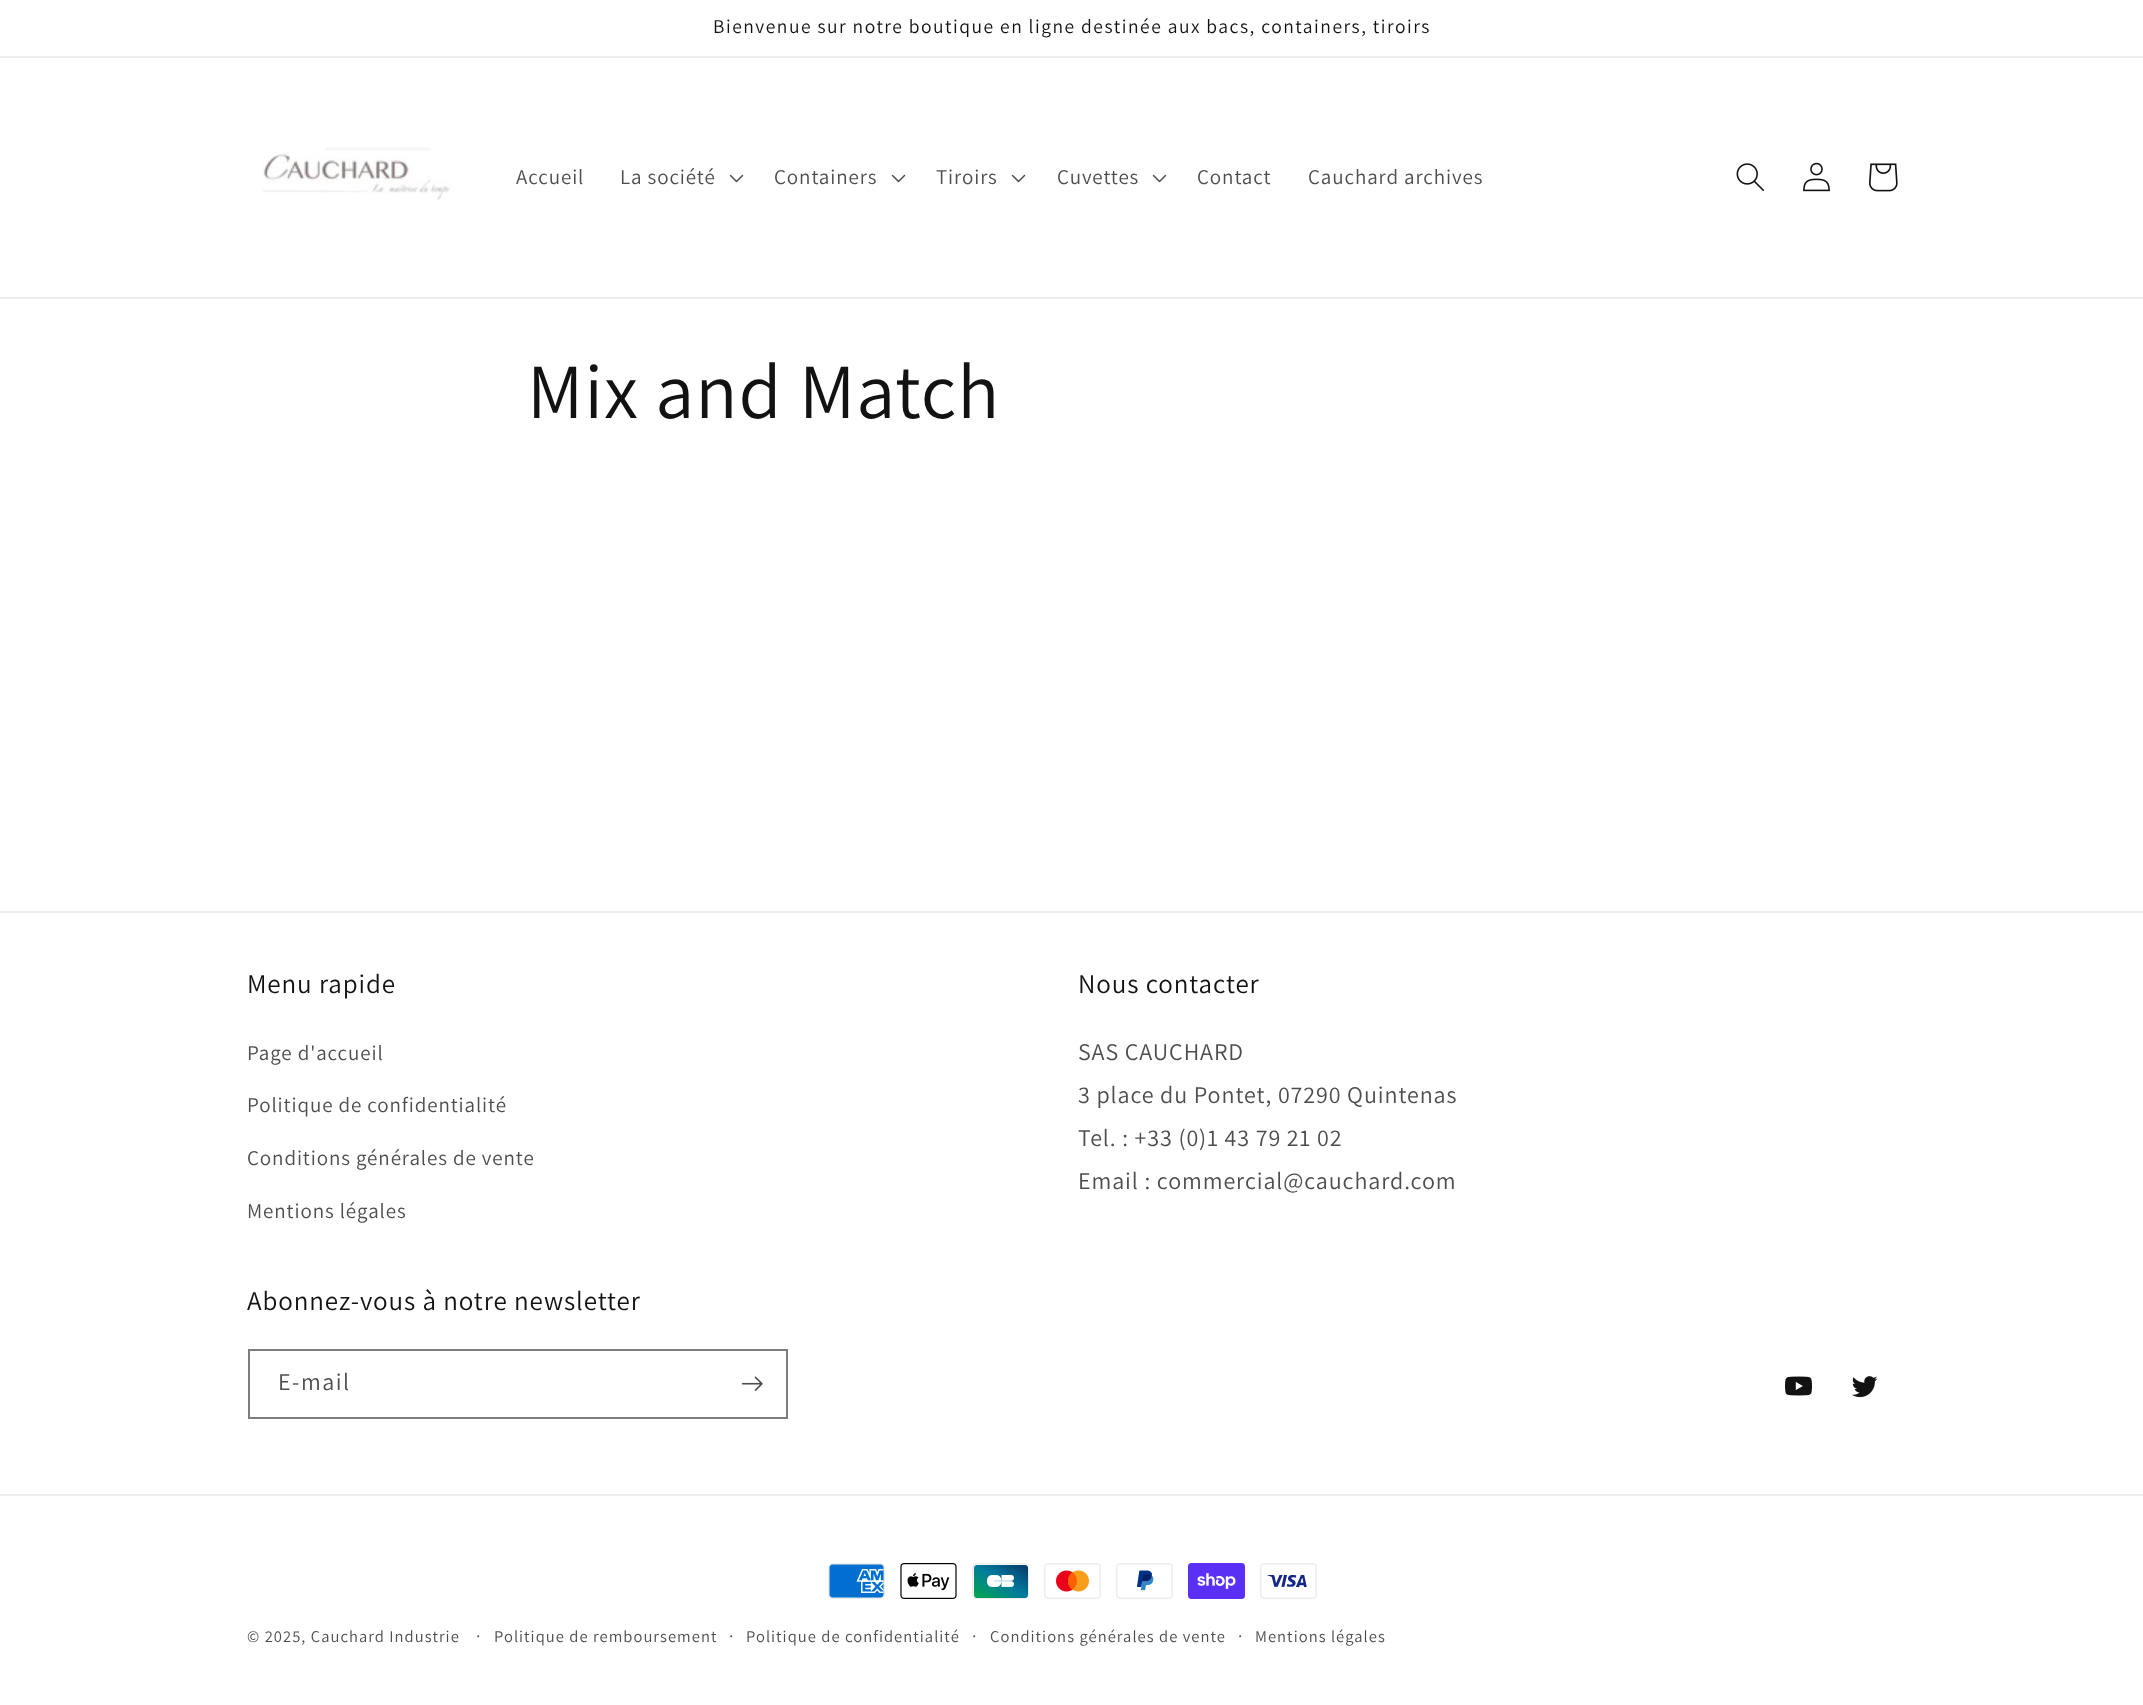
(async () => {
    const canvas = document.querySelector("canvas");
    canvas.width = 2143;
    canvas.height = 1705;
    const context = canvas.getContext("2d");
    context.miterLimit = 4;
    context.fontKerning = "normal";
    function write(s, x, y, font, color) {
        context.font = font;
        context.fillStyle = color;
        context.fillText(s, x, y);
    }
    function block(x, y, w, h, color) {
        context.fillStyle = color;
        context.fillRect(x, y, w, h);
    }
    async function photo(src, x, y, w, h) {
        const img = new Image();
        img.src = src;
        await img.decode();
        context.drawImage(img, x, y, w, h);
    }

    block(0, 0, 2143, 1705, "rgb(255, 255, 255)");
    block(0, 56, 2143, 2, "rgb(236, 236, 236)");
    context.letterSpacing = "1.5px";
    write("Bienvenue sur notre boutique en ligne destinée aux bacs, containers, tiroirs", 713, 33, "19.5px Assistant", "rgb(18, 18, 18)");
    block(0, 297, 2143, 2, "rgb(236, 236, 236)");
    await photo("media/1.png", 262, 147, 188, 53);
    context.letterSpacing = "0.9px";
    write("Accueil", 516, 184, "21px Assistant", "rgb(77, 77, 77)");
    write("La société", 620, 184, "21px Assistant", "rgb(77, 77, 77)");
    await photo("media/2.png", 729, 174, 15, 9);
    write("Containers", 774, 184, "21px Assistant", "rgb(77, 77, 77)");
    await photo("media/2.png", 891, 174, 15, 9);
    write("Tiroirs", 936, 184, "21px Assistant", "rgb(77, 77, 77)");
    await photo("media/2.png", 1011, 174, 15, 9);
    write("Cuvettes", 1057, 184, "21px Assistant", "rgb(77, 77, 77)");
    await photo("media/2.png", 1152, 174, 15, 9);
    write("Contact", 1197, 184, "21px Assistant", "rgb(77, 77, 77)");
    write("Cauchard archives", 1308, 184, "21px Assistant", "rgb(77, 77, 77)");
    await photo("media/3.png", 1736, 163, 28, 28);
    await photo("media/4.png", 1803, 162, 27, 30);
    await photo("media/5.png", 1869, 163, 29, 29);
    write("Mix and Match", 527, 418, "78px Assistant", "rgb(18, 18, 18)");
    block(0, 911, 2143, 2, "rgb(236, 236, 236)");
    write("Menu rapide", 247, 993, "27px Assistant", "rgb(18, 18, 18)");
    write("Page d'accueil", 247, 1060, "21px Assistant", "rgb(77, 77, 77)");
    write("Politique de confidentialité", 247, 1112, "21px Assistant", "rgb(77, 77, 77)");
    write("Conditions générales de vente", 247, 1165, "21px Assistant", "rgb(77, 77, 77)");
    write("Mentions légales", 247, 1218, "21px Assistant", "rgb(77, 77, 77)");
    write("Nous contacter", 1078, 993, "27px Assistant", "rgb(18, 18, 18)");
    write("SAS CAUCHARD", 1078, 1060, "24px Assistant", "rgb(77, 77, 77)");
    write("3 place du Pontet, 07290 Quintenas", 1078, 1103, "24px Assistant", "rgb(77, 77, 77)");
    write("Tel. : +33 (0)1 43 79 21 02", 1078, 1146, "24px Assistant", "rgb(77, 77, 77)");
    write("Email : commercial@cauchard.com", 1078, 1189, "24px Assistant", "rgb(77, 77, 77)");
    write("Abonnez-vous à notre newsletter", 247, 1310, "27px Assistant", "rgb(18, 18, 18)");
    context.strokeStyle = "rgb(125, 125, 125)";
    context.lineWidth = 2;
    context.strokeRect(249, 1350, 538, 68);
    context.letterSpacing = "1.5px";
    write("E-mail", 278, 1390, "24px Assistant", "rgb(77, 77, 77)");
    await photo("media/6.png", 741, 1376, 22, 15);
    await photo("media/7.png", 1785, 1376, 27, 20);
    await photo("media/8.png", 1852, 1376, 26, 22);
    block(0, 1494, 2143, 2, "rgb(236, 236, 236)");
    await photo("media/9.png", 828, 1563, 57, 36);
    await photo("media/10.png", 900, 1563, 57, 36);
    await photo("media/11.png", 972, 1563, 57, 36);
    await photo("media/12.png", 1044, 1563, 57, 36);
    await photo("media/13.png", 1116, 1563, 57, 36);
    await photo("media/14.png", 1188, 1563, 57, 36);
    await photo("media/15.png", 1260, 1563, 57, 36);
    context.letterSpacing = "1.05px";
    write("© 2025, Cauchard Industrie", 247, 1642, "16.5px Assistant", "rgb(77, 77, 77)");
    write("·", 476, 1642, "18px Assistant", "rgb(77, 77, 77)");
    write("Politique de remboursement", 494, 1642, "16.5px Assistant", "rgb(77, 77, 77)");
    write("·", 729, 1642, "18px Assistant", "rgb(77, 77, 77)");
    write("Politique de confidentialité", 746, 1642, "16.5px Assistant", "rgb(77, 77, 77)");
    write("·", 972, 1642, "18px Assistant", "rgb(77, 77, 77)");
    write("Conditions générales de vente", 990, 1642, "16.5px Assistant", "rgb(77, 77, 77)");
    write("·", 1238, 1642, "18px Assistant", "rgb(77, 77, 77)");
    write("Mentions légales", 1255, 1642, "16.5px Assistant", "rgb(77, 77, 77)");
})();
